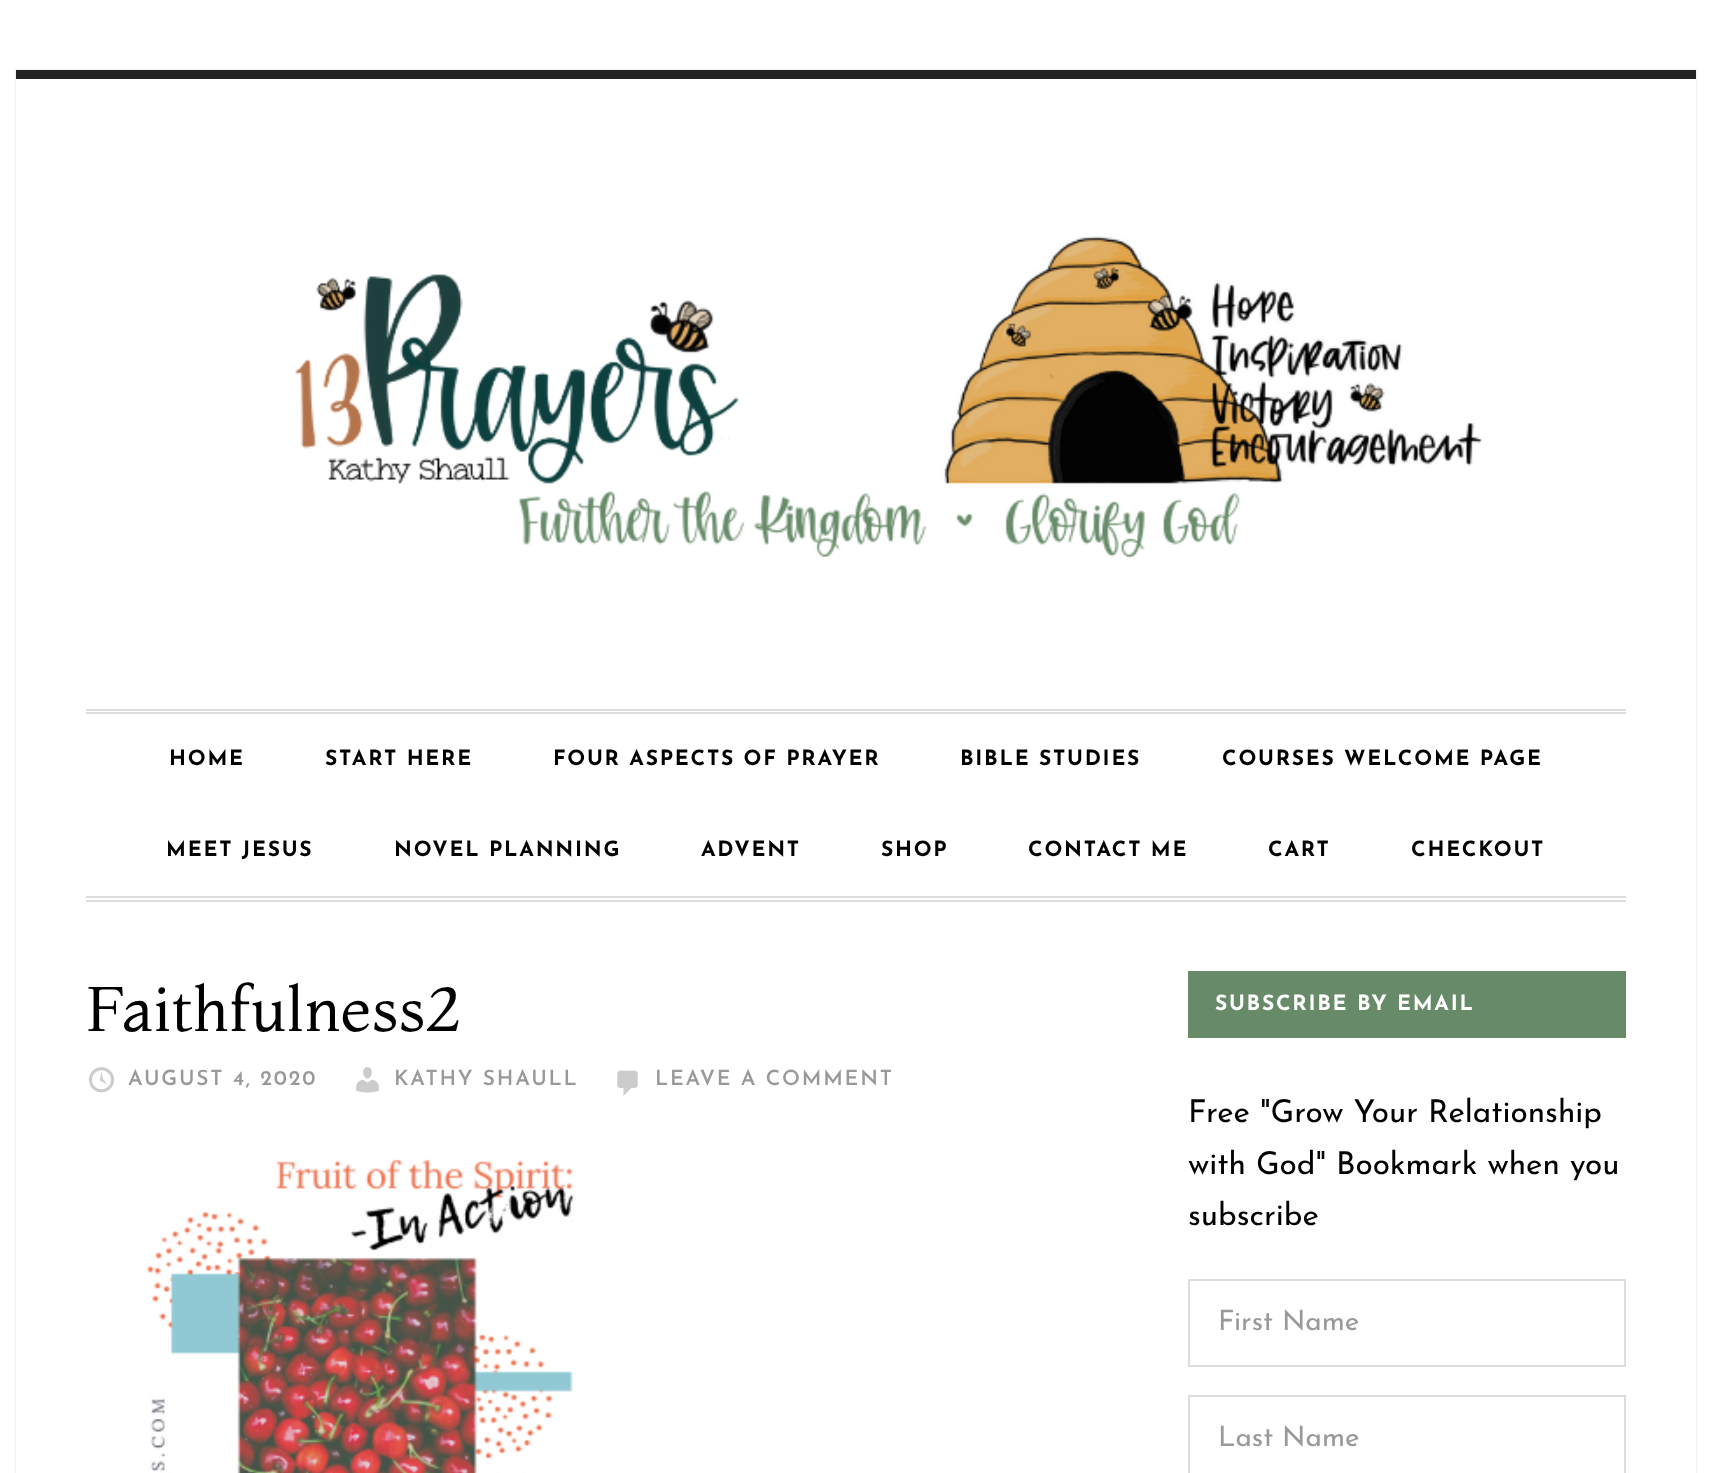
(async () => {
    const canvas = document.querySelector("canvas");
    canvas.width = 1711;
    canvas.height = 1473;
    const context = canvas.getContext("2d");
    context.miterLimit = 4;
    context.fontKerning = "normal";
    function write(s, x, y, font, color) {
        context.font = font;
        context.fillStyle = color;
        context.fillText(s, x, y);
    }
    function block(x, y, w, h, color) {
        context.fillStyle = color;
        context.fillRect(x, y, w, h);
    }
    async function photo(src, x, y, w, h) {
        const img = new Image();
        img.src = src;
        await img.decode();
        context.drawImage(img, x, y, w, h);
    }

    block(0, 0, 1711, 1473, "rgb(255, 255, 255)");
    context.fillStyle = "rgba(0, 0, 0, 0.15)";
    context.filter = "blur(1px)";
    context.beginPath();
    context.rect(16, 70, 1680, 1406);
    context.fill();
    context.filter = "none";
    block(16, 79, 1680, 1394, "rgb(255, 255, 255)");
    block(16, 70, 1680, 9, "rgb(34, 34, 34)");
    await photo("media/1.png", 295, 236, 1188, 323);
    block(86, 709, 1540, 2, "rgb(221, 221, 221)");
    block(86, 712, 1540, 2, "rgb(221, 221, 221)");
    block(86, 896, 1540, 2, "rgb(221, 221, 221)");
    block(86, 900, 1540, 2, "rgb(221, 221, 221)");
    context.letterSpacing = "1.75px";
    write("HOME", 169, 765, "bold 21px Josefin Sans", "rgb(0, 0, 0)");
    write("START HERE", 325, 765, "bold 21px Josefin Sans", "rgb(0, 0, 0)");
    write("FOUR ASPECTS OF PRAYER", 553, 765, "bold 21px Josefin Sans", "rgb(0, 0, 0)");
    write("BIBLE STUDIES", 960, 765, "bold 21px Josefin Sans", "rgb(0, 0, 0)");
    write("COURSES WELCOME PAGE", 1222, 765, "bold 21px Josefin Sans", "rgb(0, 0, 0)");
    write("MEET JESUS", 166, 856, "bold 21px Josefin Sans", "rgb(0, 0, 0)");
    write("NOVEL PLANNING", 394, 856, "bold 21px Josefin Sans", "rgb(0, 0, 0)");
    write("ADVENT", 701, 856, "bold 21px Josefin Sans", "rgb(0, 0, 0)");
    write("SHOP", 881, 856, "bold 21px Josefin Sans", "rgb(0, 0, 0)");
    write("CONTACT ME", 1028, 856, "bold 21px Josefin Sans", "rgb(0, 0, 0)");
    write("CART", 1268, 856, "bold 21px Josefin Sans", "rgb(0, 0, 0)");
    write("CHECKOUT", 1411, 856, "bold 21px Josefin Sans", "rgb(0, 0, 0)");
    context.letterSpacing = "0px";
    write("Faithfulness2", 86, 1031, "63px Montaga", "rgb(0, 0, 0)");
    await photo("media/2.png", 88, 1067, 27, 26);
    context.letterSpacing = "1.75px";
    write("AUGUST 4, 2020", 128, 1085, "600 21px Josefin Sans", "rgb(153, 153, 153)");
    await photo("media/3.png", 356, 1067, 23, 26);
    write("KATHY SHAULL", 394, 1085, "600 21px Josefin Sans", "rgb(153, 153, 153)");
    await photo("media/4.png", 617, 1070, 21, 26);
    write("LEAVE A COMMENT", 655, 1085, "600 21px Josefin Sans", "rgb(153, 153, 153)");
    await photo("media/5.png", 146, 1159, 428, 314);
    block(1188, 971, 438, 67, "rgb(103, 139, 105)");
    write("SUBSCRIBE BY EMAIL", 1215, 1010, "bold 21px Josefin Sans", "rgb(255, 255, 255)");
    context.letterSpacing = "0px";
    write("Free \"Grow Your Relationship", 1188, 1122, "31.5px Josefin Sans", "rgb(0, 0, 0)");
    write("with God\" Bookmark when you", 1188, 1174, "31.5px Josefin Sans", "rgb(0, 0, 0)");
    write("subscribe", 1188, 1225, "31.5px Josefin Sans", "rgb(0, 0, 0)");
    context.strokeStyle = "rgb(221, 221, 221)";
    context.lineWidth = 2;
    context.strokeRect(1189, 1280, 436, 86);
    write("First Name", 1218, 1330, "28px Josefin Sans", "rgb(153, 153, 153)");
    context.strokeRect(1189, 1396, 436, 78);
    write("Last Name", 1218, 1446, "28px Josefin Sans", "rgb(153, 153, 153)");
})();
